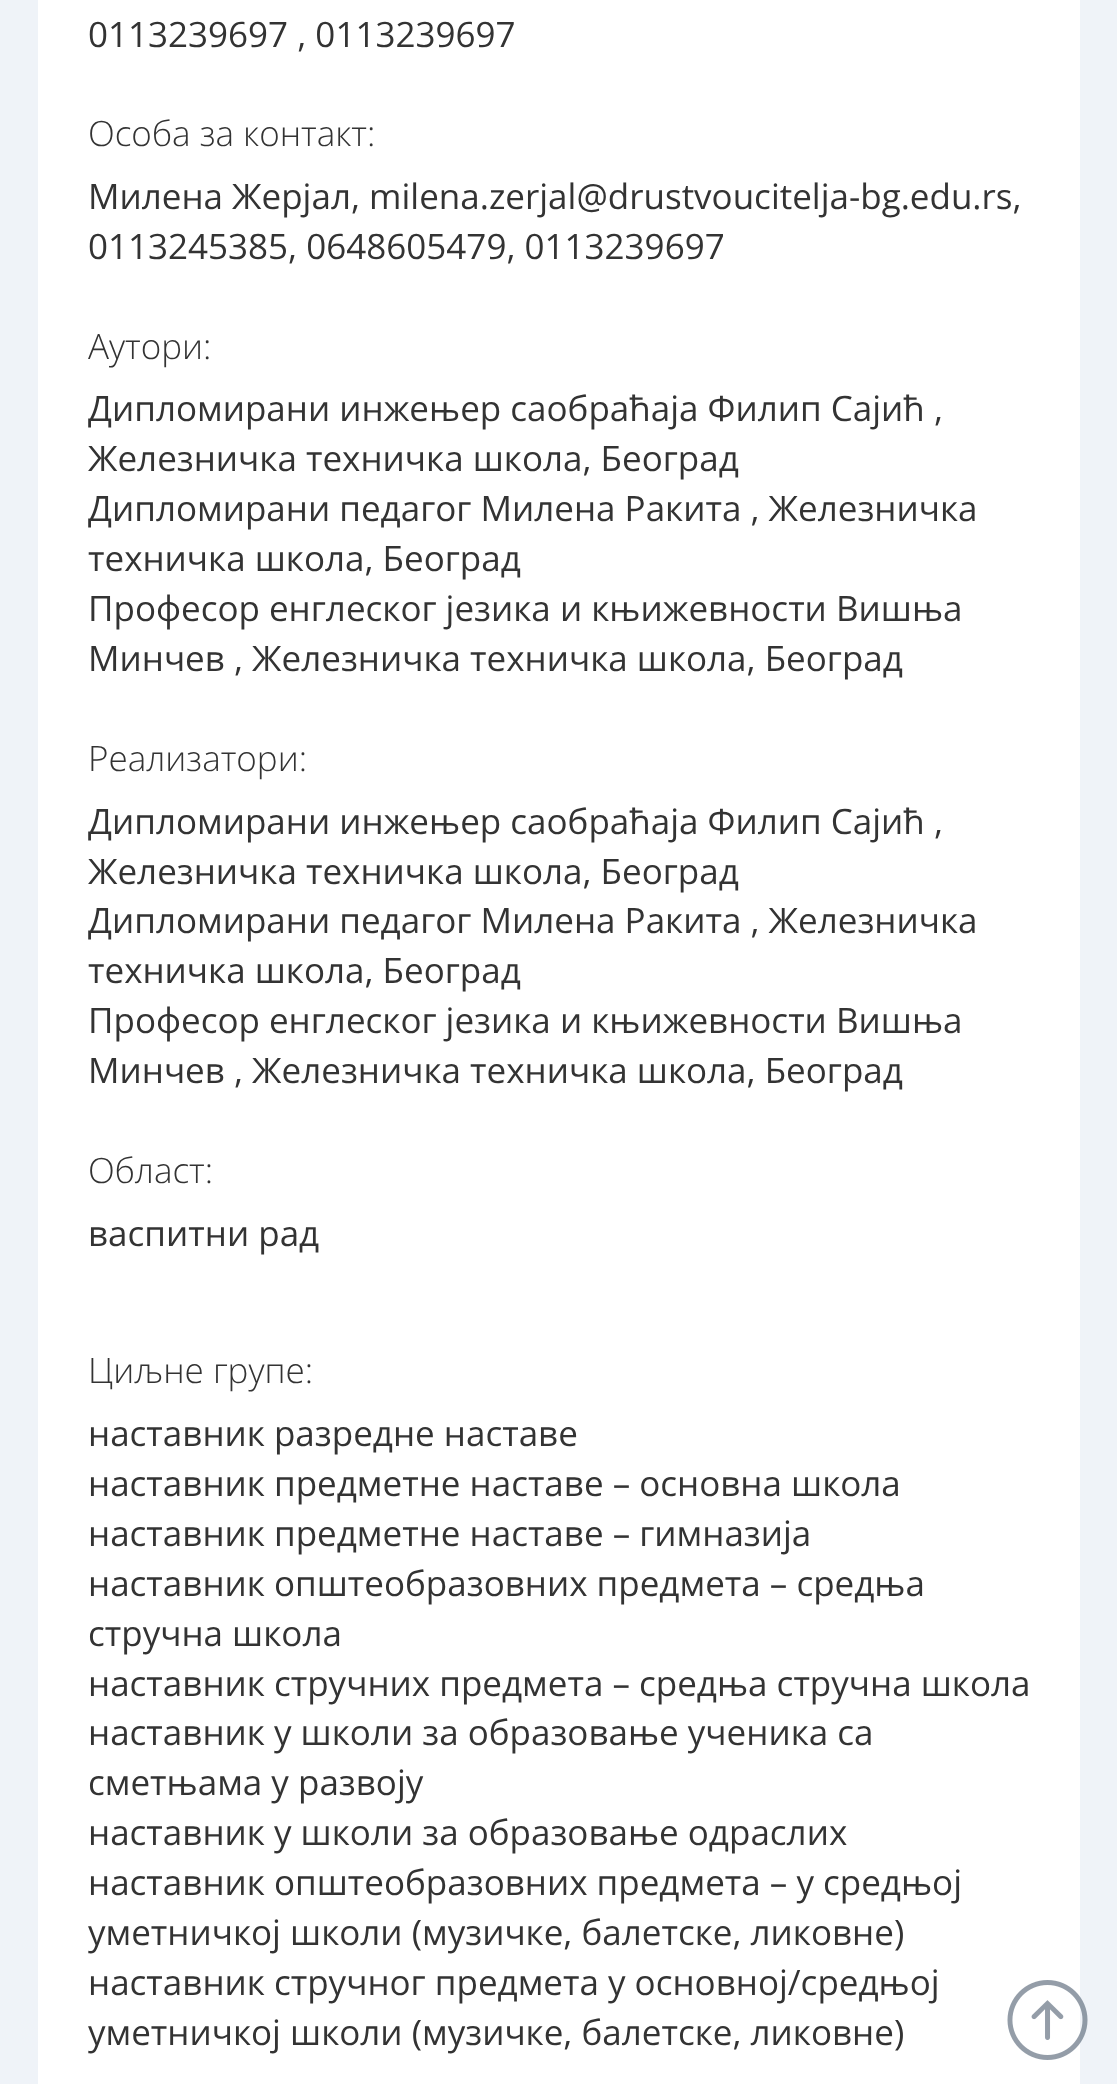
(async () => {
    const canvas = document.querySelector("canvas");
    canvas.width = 1117;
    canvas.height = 2084;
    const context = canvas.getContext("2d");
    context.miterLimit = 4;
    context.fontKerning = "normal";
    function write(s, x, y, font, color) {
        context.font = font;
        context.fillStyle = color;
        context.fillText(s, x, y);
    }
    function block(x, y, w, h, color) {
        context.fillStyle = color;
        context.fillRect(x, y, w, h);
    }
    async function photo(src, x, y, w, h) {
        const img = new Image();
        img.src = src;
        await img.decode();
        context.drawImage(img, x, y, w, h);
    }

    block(0, 0, 1117, 2084, "rgb(239, 243, 248)");
    block(38, 0, 1042, 2084, "rgb(255, 255, 255)");
    write("0113239697 , 0113239697", 88, 47, "35px Open Sans", "rgb(51, 51, 51)");
    write("Особа за контакт:", 88, 146, "300 35px Open Sans", "rgb(51, 51, 51)");
    write("Милена Жерјал, milena.zerjal@drustvoucitelja-bg.edu.rs,", 88, 209, "35px Open Sans", "rgb(51, 51, 51)");
    write("0113245385, 0648605479, 0113239697", 88, 259, "35px Open Sans", "rgb(51, 51, 51)");
    write("Аутори:", 88, 359, "300 35px Open Sans", "rgb(51, 51, 51)");
    write("Дипломирани инжењер саобраћаја Филип Сајић ,", 88, 421, "35px Open Sans", "rgb(51, 51, 51)");
    write("Железничка техничка школа, Београд", 88, 471, "35px Open Sans", "rgb(51, 51, 51)");
    write("Дипломирани педагог Милена Ракита , Железничка", 88, 521, "35px Open Sans", "rgb(51, 51, 51)");
    write("техничка школа, Београд", 88, 571, "35px Open Sans", "rgb(51, 51, 51)");
    write("Професор енглеског језика и књижевности Вишња", 88, 621, "35px Open Sans", "rgb(51, 51, 51)");
    write("Минчев , Железничка техничка школа, Београд", 88, 671, "35px Open Sans", "rgb(51, 51, 51)");
    write("Реализатори:", 88, 771, "300 35px Open Sans", "rgb(51, 51, 51)");
    write("Дипломирани инжењер саобраћаја Филип Сајић ,", 88, 834, "35px Open Sans", "rgb(51, 51, 51)");
    write("Железничка техничка школа, Београд", 88, 884, "35px Open Sans", "rgb(51, 51, 51)");
    write("Дипломирани педагог Милена Ракита , Железничка", 88, 933, "35px Open Sans", "rgb(51, 51, 51)");
    write("техничка школа, Београд", 88, 983, "35px Open Sans", "rgb(51, 51, 51)");
    write("Професор енглеског језика и књижевности Вишња", 88, 1033, "35px Open Sans", "rgb(51, 51, 51)");
    write("Минчев , Железничка техничка школа, Београд", 88, 1083, "35px Open Sans", "rgb(51, 51, 51)");
    write("Област:", 88, 1183, "300 35px Open Sans", "rgb(51, 51, 51)");
    write("васпитни рад", 88, 1246, "35px Open Sans", "rgb(51, 51, 51)");
    write("Циљне групе:", 88, 1383, "300 35px Open Sans", "rgb(51, 51, 51)");
    write("наставник разредне наставе", 88, 1446, "35px Open Sans", "rgb(51, 51, 51)");
    write("наставник предметне наставе – основна школа", 88, 1496, "35px Open Sans", "rgb(51, 51, 51)");
    write("наставник предметне наставе – гимназија", 88, 1546, "35px Open Sans", "rgb(51, 51, 51)");
    write("наставник општеобразовних предмета – средња", 88, 1596, "35px Open Sans", "rgb(51, 51, 51)");
    write("стручна школа", 88, 1646, "35px Open Sans", "rgb(51, 51, 51)");
    write("наставник стручних предмета – средња стручна школа", 88, 1696, "35px Open Sans", "rgb(51, 51, 51)");
    write("наставник у школи за образовање ученика са", 88, 1745, "35px Open Sans", "rgb(51, 51, 51)");
    write("сметњама у развоју", 88, 1795, "35px Open Sans", "rgb(51, 51, 51)");
    write("наставник у школи за образовање одраслих", 88, 1845, "35px Open Sans", "rgb(51, 51, 51)");
    write("наставник општеобразовних предмета – у средњој", 88, 1895, "35px Open Sans", "rgb(51, 51, 51)");
    write("уметничкој школи (музичке, балетске, ликовне)", 88, 1945, "35px Open Sans", "rgb(51, 51, 51)");
    write("наставник стручног предмета у основној/средњој", 88, 1995, "35px Open Sans", "rgb(51, 51, 51)");
    write("уметничкој школи (музичке, балетске, ликовне)", 88, 2045, "35px Open Sans", "rgb(51, 51, 51)");
    await photo("media/1.png", 1007, 1980, 81, 80);
})();
